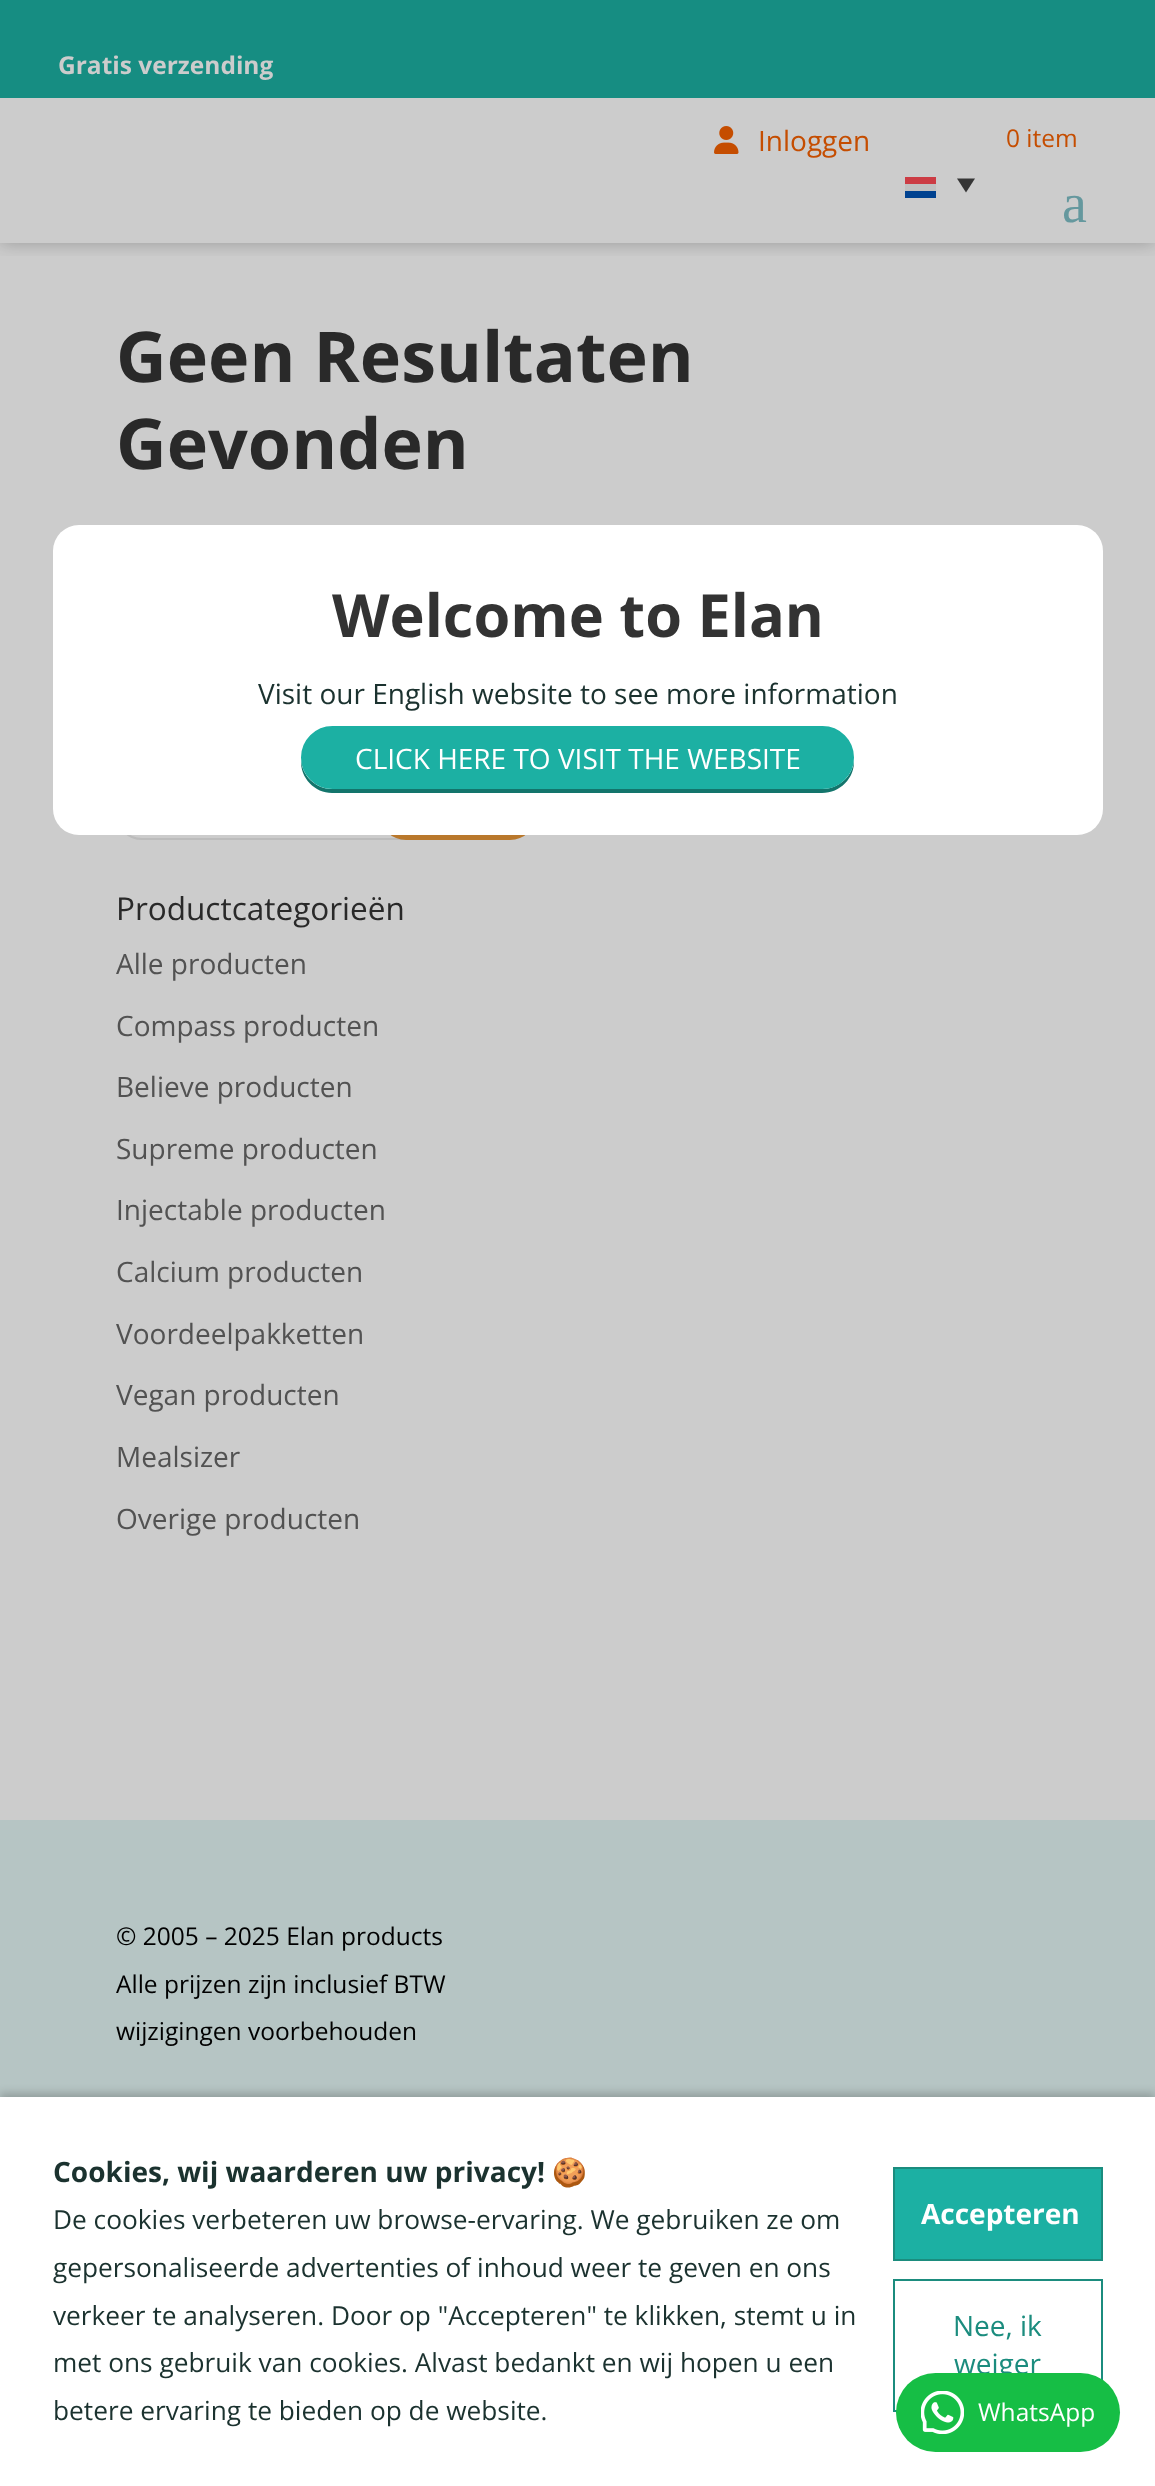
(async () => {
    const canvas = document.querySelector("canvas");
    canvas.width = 1155;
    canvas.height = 2486;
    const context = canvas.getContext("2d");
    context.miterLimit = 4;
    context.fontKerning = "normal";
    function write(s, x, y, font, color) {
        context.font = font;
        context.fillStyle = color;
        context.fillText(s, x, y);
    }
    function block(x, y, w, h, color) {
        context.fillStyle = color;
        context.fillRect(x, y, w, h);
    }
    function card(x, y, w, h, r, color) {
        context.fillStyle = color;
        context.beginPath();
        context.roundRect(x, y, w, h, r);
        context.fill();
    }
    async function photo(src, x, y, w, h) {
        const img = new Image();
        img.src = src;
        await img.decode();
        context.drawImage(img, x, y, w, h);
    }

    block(0, 0, 1155, 2486, "rgb(204, 204, 204)");
    context.save();
    context.beginPath();
    context.rect(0, 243, 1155, 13);
    context.clip();
    context.fillStyle = "rgba(0, 0, 0, 0.25)";
    context.filter = "blur(9px)";
    context.beginPath();
    context.rect(0, 0, 1155, 243);
    context.fill();
    context.filter = "none";
    context.restore();
    block(0, 0, 1155, 98, "rgb(22, 141, 130)");
    write("Gratis verzending", 58, 74, "bold 24.5px Open Sans", "rgb(204, 204, 204)");
    await photo("media/1.png", 714, 126, 25, 28);
    write("Inloggen", 758, 151, "28px Open Sans", "rgb(197, 77, 0)");
    block(905, 177, 31, 7, "rgb(204, 60, 68)");
    context.fillStyle = "rgb(54, 54, 54)";
    context.beginPath();
    context.moveTo(957, 178.5);
    context.lineTo(975, 178.5);
    context.lineTo(966, 192.5);
    context.closePath();
    context.fill();
    block(905, 184, 31, 7, "rgb(192, 192, 192)");
    block(905, 191, 31, 7, "rgb(0, 66, 144)");
    write("0 item", 1006, 147, "24.5px Open Sans", "rgb(197, 77, 0)");
    write("a", 1062, 222, "56px Liberation Serif", "rgb(101, 152, 158)");
    write("Geen Resultaten", 116, 382, "bold 70px Open Sans", "rgb(41, 41, 41)");
    write("Gevonden", 116, 469, "bold 70px Open Sans", "rgb(41, 41, 41)");
    context.beginPath();
    context.roundRect(117, 771, 325, 68, 25);
    context.strokeStyle = "rgb(188, 188, 188)";
    context.lineWidth = 2;
    context.stroke();
    card(380, 770, 156, 70, 26, "rgb(185, 120, 44)");
    write("Productcategorieën", 116, 920, "31.5px Open Sans", "rgb(41, 41, 41)");
    write("Alle producten", 116, 974, "28px Open Sans", "rgb(82, 82, 82)");
    write("Compass producten", 116, 1036, "28px Open Sans", "rgb(82, 82, 82)");
    write("Believe producten", 116, 1097, "28px Open Sans", "rgb(82, 82, 82)");
    write("Supreme producten", 116, 1159, "28px Open Sans", "rgb(82, 82, 82)");
    write("Injectable producten", 116, 1220, "28px Open Sans", "rgb(82, 82, 82)");
    write("Calcium producten", 116, 1282, "28px Open Sans", "rgb(82, 82, 82)");
    write("Voordeelpakketten", 116, 1344, "28px Open Sans", "rgb(82, 82, 82)");
    write("Vegan producten", 116, 1405, "28px Open Sans", "rgb(82, 82, 82)");
    write("Mealsizer", 116, 1467, "28px Open Sans", "rgb(82, 82, 82)");
    write("Overige producten", 116, 1529, "28px Open Sans", "rgb(82, 82, 82)");
    block(0, 1820, 1155, 277, "rgb(182, 197, 196)");
    write("© 2005 – 2025 Elan products", 116, 1945, "24.5px Open Sans", "rgb(0, 0, 0)");
    write("Alle prijzen zijn inclusief BTW", 116, 1993, "24.5px Open Sans", "rgb(0, 0, 0)");
    write("wijzigingen voorbehouden", 116, 2040, "24.5px Open Sans", "rgb(0, 0, 0)");
    card(53, 525, 1050, 310, 26, "rgb(255, 255, 255)");
    write("Welcome to Elan", 332, 637, "bold 59.5px Open Sans", "rgb(51, 51, 51)");
    write("Visit our English website to see more information", 258, 704, "28px Open Sans", "rgb(27, 50, 47)");
    context.fillStyle = "rgb(19, 117, 108)";
    context.beginPath();
    context.moveTo(301, 760);
    context.bezierCurveTo(300, 778, 315, 793, 332, 793);
    context.lineTo(822, 793);
    context.bezierCurveTo(840, 793, 855, 778, 854, 760);
    context.bezierCurveTo(853, 776, 839, 789, 822, 789);
    context.lineTo(332, 789);
    context.bezierCurveTo(316, 789, 302, 776, 301, 760);
    context.closePath();
    context.fill();
    context.fillStyle = "rgb(28, 176, 163)";
    context.beginPath();
    context.roundRect(302, 727, 551, 61, 30.5);
    context.fill();
    context.strokeStyle = "rgb(28, 176, 163)";
    context.stroke();
    write("CLICK HERE TO VISIT THE WEBSITE", 355, 769, "28px Open Sans", "rgb(255, 255, 255)");
    context.fillStyle = "rgba(0, 0, 0, 0.2)";
    context.filter = "blur(4.5px)";
    context.beginPath();
    context.rect(0, 2093, 1155, 390);
    context.fill();
    context.filter = "none";
    block(0, 2097, 1155, 389, "rgb(255, 255, 255)");
    write("Cookies, wij waarderen uw privacy!", 53, 2182, "bold 28px Open Sans", "rgb(27, 50, 47)");
    write("🍪", 552, 2182, "bold 28px Noto Color Emoji", "rgb(27, 50, 47)");
    write("De cookies verbeteren uw browse-ervaring. We gebruiken ze om", 53, 2229, "26.25px Open Sans", "rgb(27, 50, 47)");
    write("gepersonaliseerde advertenties of inhoud weer te geven en ons", 53, 2277, "26.25px Open Sans", "rgb(27, 50, 47)");
    write("verkeer te analyseren. Door op \"Accepteren\" te klikken, stemt u in", 53, 2325, "26.25px Open Sans", "rgb(27, 50, 47)");
    write("met ons gebruik van cookies. Alvast bedankt en wij hopen u een", 53, 2372, "26.25px Open Sans", "rgb(27, 50, 47)");
    write("betere ervaring te bieden op de website.", 53, 2420, "26.25px Open Sans", "rgb(27, 50, 47)");
    context.fillStyle = "rgb(28, 176, 163)";
    context.beginPath();
    context.rect(894, 2168, 208, 92);
    context.fill();
    context.strokeStyle = "rgb(27, 140, 126)";
    context.stroke();
    write("Accepteren", 921, 2224, "bold 28px Open Sans", "rgb(255, 255, 255)");
    context.strokeRect(894, 2280, 208, 131);
    write("Nee, ik", 953, 2336, "28px Open Sans", "rgb(27, 140, 126)");
    write("weiger", 954, 2374, "28px Open Sans", "rgb(27, 140, 126)");
    card(896, 2373, 224, 79, 39.5, "rgb(22, 190, 69)");
    await photo("media/2.png", 921, 2391, 43, 43);
    write("WhatsApp", 978, 2421, "24.5px Open Sans", "rgb(255, 255, 255)");
})();
